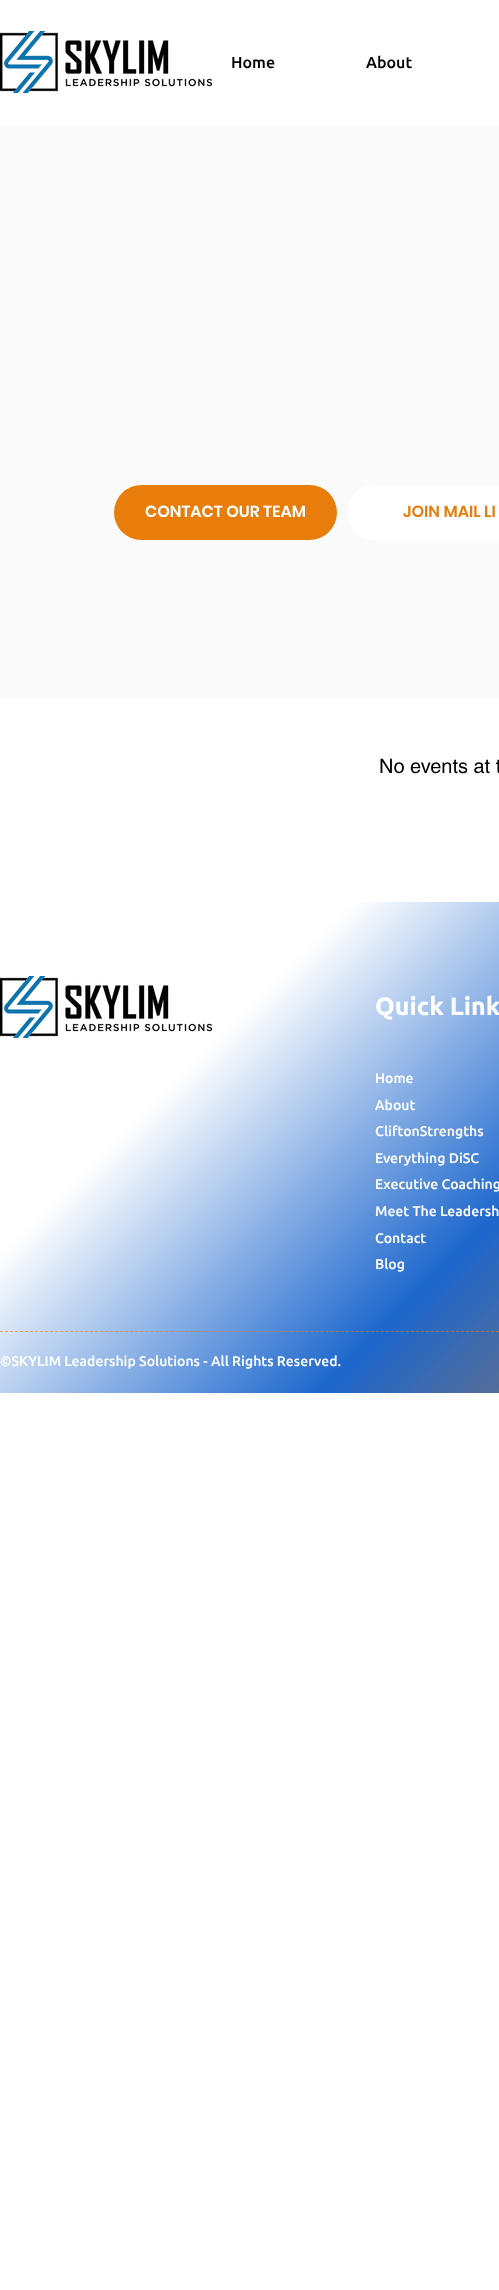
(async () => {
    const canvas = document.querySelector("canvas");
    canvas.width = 499;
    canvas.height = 2290;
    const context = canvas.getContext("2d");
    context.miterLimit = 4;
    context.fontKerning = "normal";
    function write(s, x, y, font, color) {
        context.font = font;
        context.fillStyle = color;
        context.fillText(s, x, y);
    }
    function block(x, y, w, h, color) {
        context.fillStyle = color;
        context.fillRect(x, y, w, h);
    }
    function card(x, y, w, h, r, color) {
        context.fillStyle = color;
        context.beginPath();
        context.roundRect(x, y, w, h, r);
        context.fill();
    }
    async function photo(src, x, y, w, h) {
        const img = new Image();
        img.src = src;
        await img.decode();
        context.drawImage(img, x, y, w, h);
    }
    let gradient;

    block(0, 0, 499, 2290, "rgb(255, 255, 255)");
    await photo("media/1.png", 0, 31, 212, 62);
    write("Home", 231, 68, "500 16px Ubuntu", "rgb(0, 0, 0)");
    write("About", 366, 68, "500 16px Ubuntu", "rgb(0, 0, 0)");
    block(0, 125, 499, 574, "rgb(250, 250, 250)");
    card(114, 485, 223, 55, 27.5, "rgb(232, 125, 11)");
    write("CONTACT OUR TEAM", 145, 517, "600 16px Poppins", "rgb(255, 255, 255)");
    card(347, 485, 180, 55, 27.5, "rgb(255, 255, 255)");
    write("JOIN MAIL LI", 403, 517, "600 16px Poppins", "rgb(232, 125, 11)");
    write("No events at t", 379, 773, "20px helvetica", "rgb(0, 0, 0)");
    gradient = context.createLinearGradient(122, 780, 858, 1515);
    gradient.addColorStop(0.24, "rgb(255, 255, 255)");
    gradient.addColorStop(0.55, "rgb(29, 103, 205)");
    gradient.addColorStop(1, "rgb(232, 125, 11)");
    context.fillStyle = gradient;
    context.fillRect(0, 902, 499, 491);
    await photo("media/1.png", 0, 976, 212, 62);
    write("Quick Link", 375, 1015, "bold 25px Ubuntu", "rgb(255, 255, 255)");
    write("Home", 375, 1083, "500 14px Ubuntu", "rgb(255, 255, 255)");
    write("About", 375, 1110, "500 14px Ubuntu", "rgb(255, 255, 255)");
    write("CliftonStrengths", 375, 1136, "500 14px Ubuntu", "rgb(255, 255, 255)");
    write("Everything DiSC", 375, 1163, "500 14px Ubuntu", "rgb(255, 255, 255)");
    write("Executive Coaching", 375, 1189, "500 14px Ubuntu", "rgb(255, 255, 255)");
    write("Meet The Leadersh", 375, 1216, "500 14px Ubuntu", "rgb(255, 255, 255)");
    write("Contact", 375, 1243, "500 14px Ubuntu", "rgb(255, 255, 255)");
    write("Blog", 375, 1269, "500 14px Ubuntu", "rgb(255, 255, 255)");
    context.beginPath();
    context.moveTo(0, 1331.5);
    context.lineTo(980, 1331.5);
    context.strokeStyle = "rgba(232, 125, 11, 0.59)";
    context.setLineDash([3, 2.01]);
    context.stroke();
    write("©SKYLIM Leadership Solutions - All Rights Reserved.", 0, 1366, "500 14px Ubuntu", "rgb(255, 255, 255)");
})();
